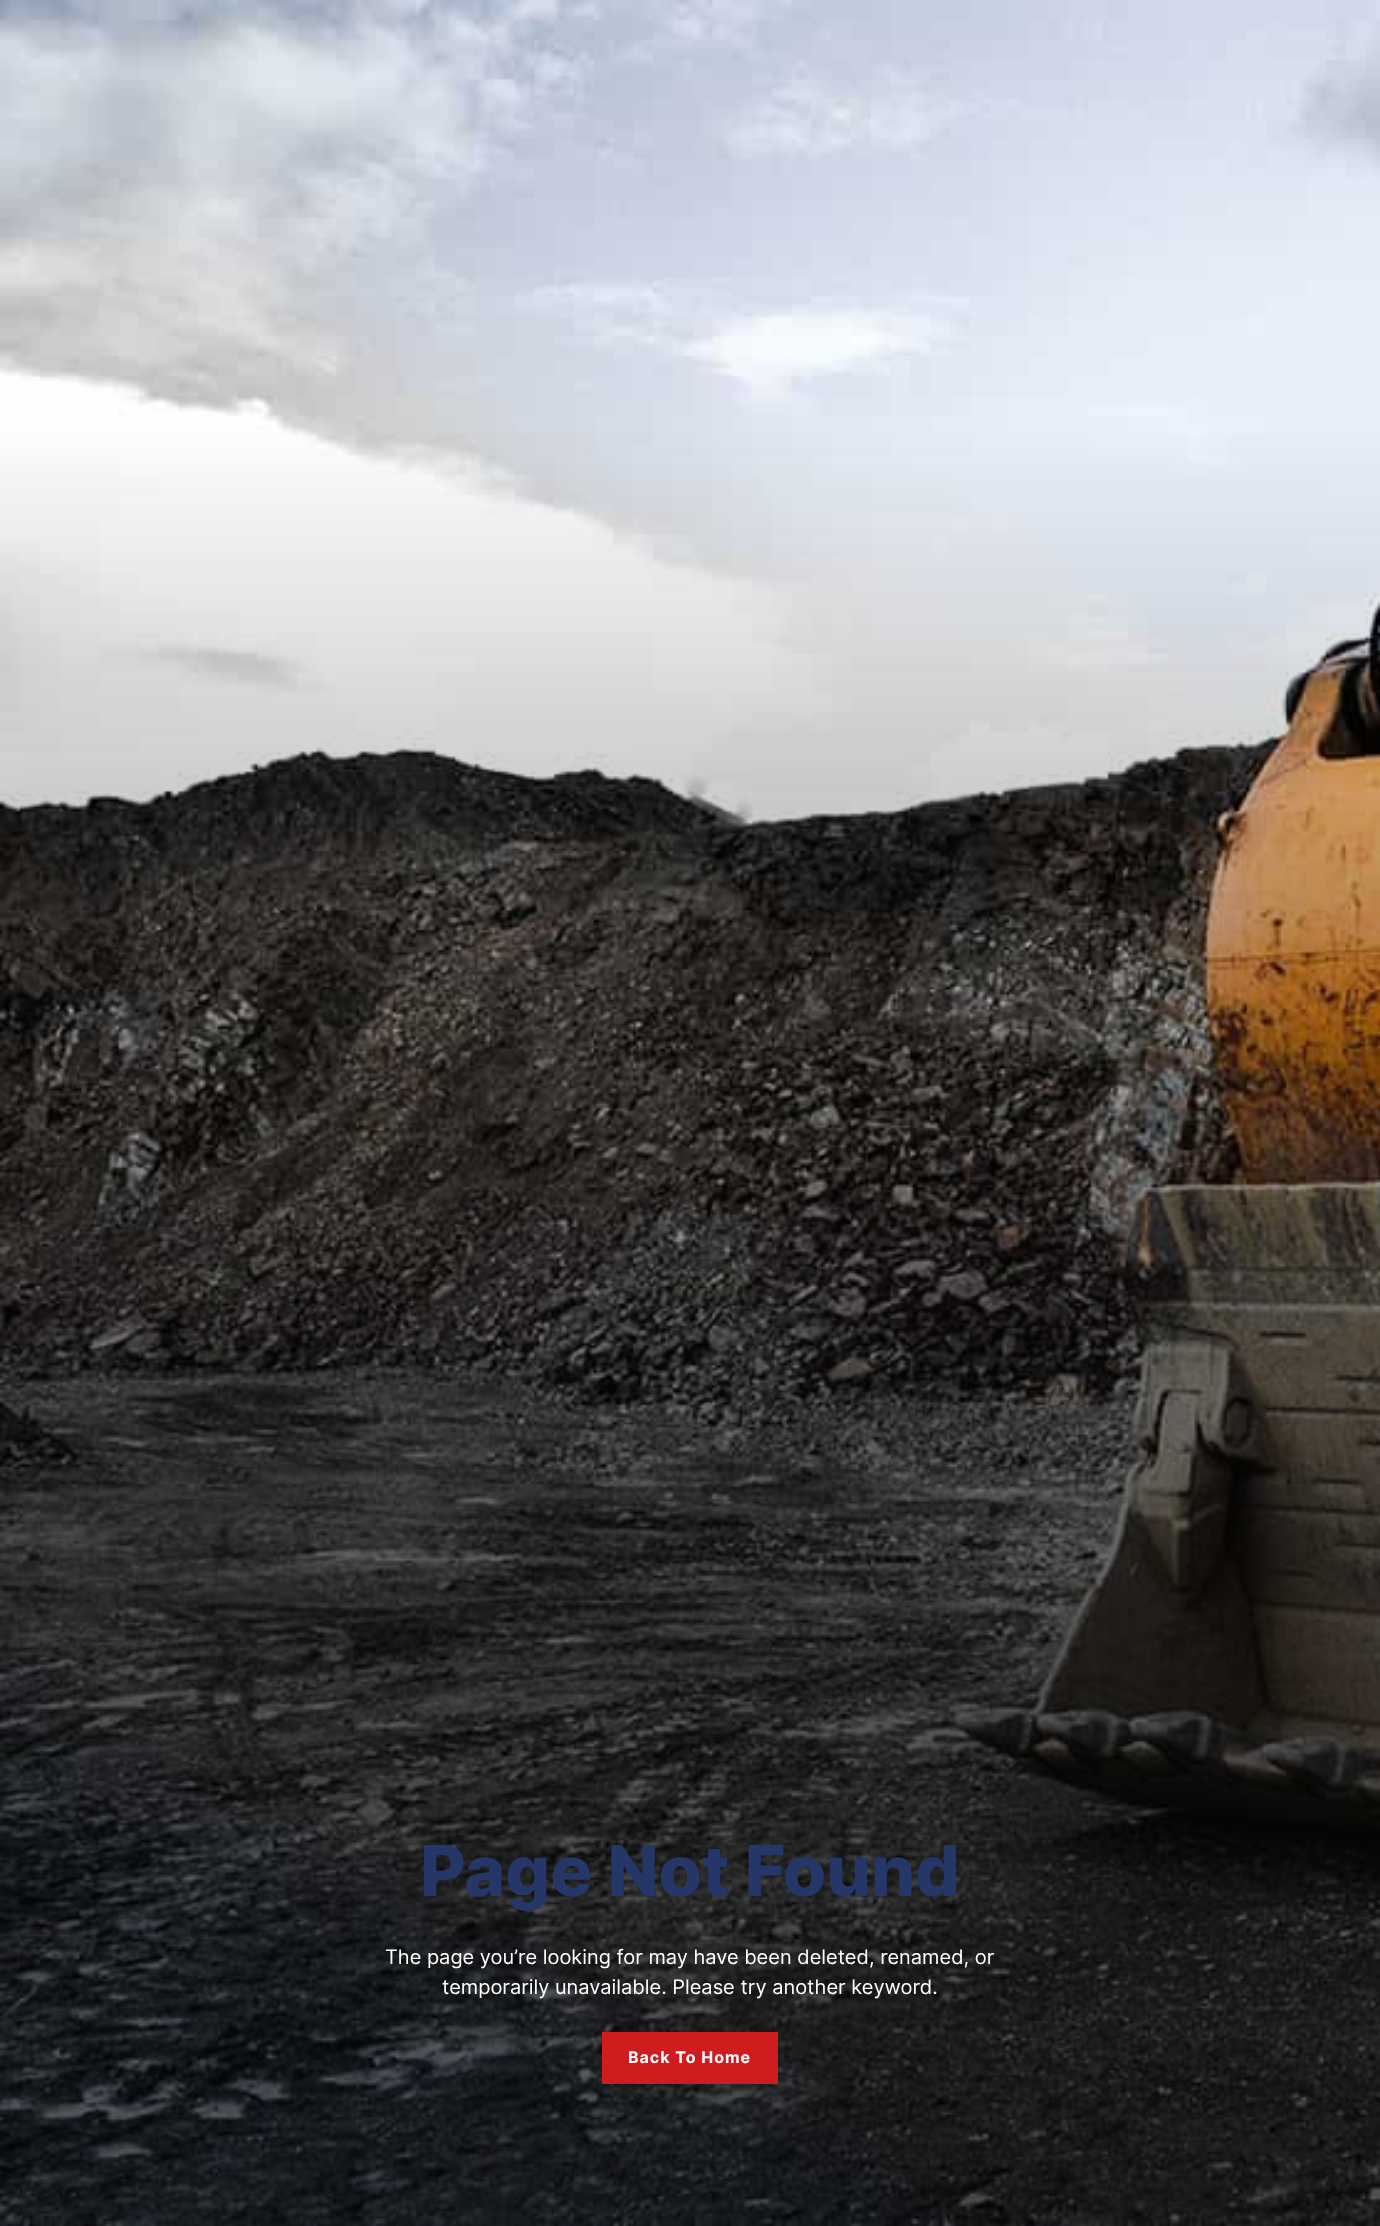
(async () => {
    const canvas = document.querySelector("canvas");
    canvas.width = 1380;
    canvas.height = 2226;
    const context = canvas.getContext("2d");
    context.miterLimit = 4;
    context.fontKerning = "normal";
    function write(s, x, y, font, color) {
        context.font = font;
        context.fillStyle = color;
        context.fillText(s, x, y);
    }
    function block(x, y, w, h, color) {
        context.fillStyle = color;
        context.fillRect(x, y, w, h);
    }
    async function photo(src, x, y, w, h) {
        const img = new Image();
        img.src = src;
        await img.decode();
        context.drawImage(img, x, y, w, h);
    }

    block(0, 0, 1380, 2226, "rgb(255, 255, 255)");
    await photo("media/1.png", 0, 0, 1380, 2226);
    write("Page Not Found", 420, 1896, "800 70px Inter", "rgb(37, 54, 104)");
    write("The page you’re looking for may have been deleted, renamed, or", 385, 1964, "20px Inter", "rgb(255, 255, 255)");
    write("temporarily unavailable. Please try another keyword.", 442, 1994, "20px Inter", "rgb(255, 255, 255)");
    block(602, 2032, 176, 52, "rgb(208, 28, 31)");
    context.letterSpacing = "1px";
    write("Back To Home", 628, 2063, "bold 16px Inter", "rgb(255, 255, 255)");
})();
